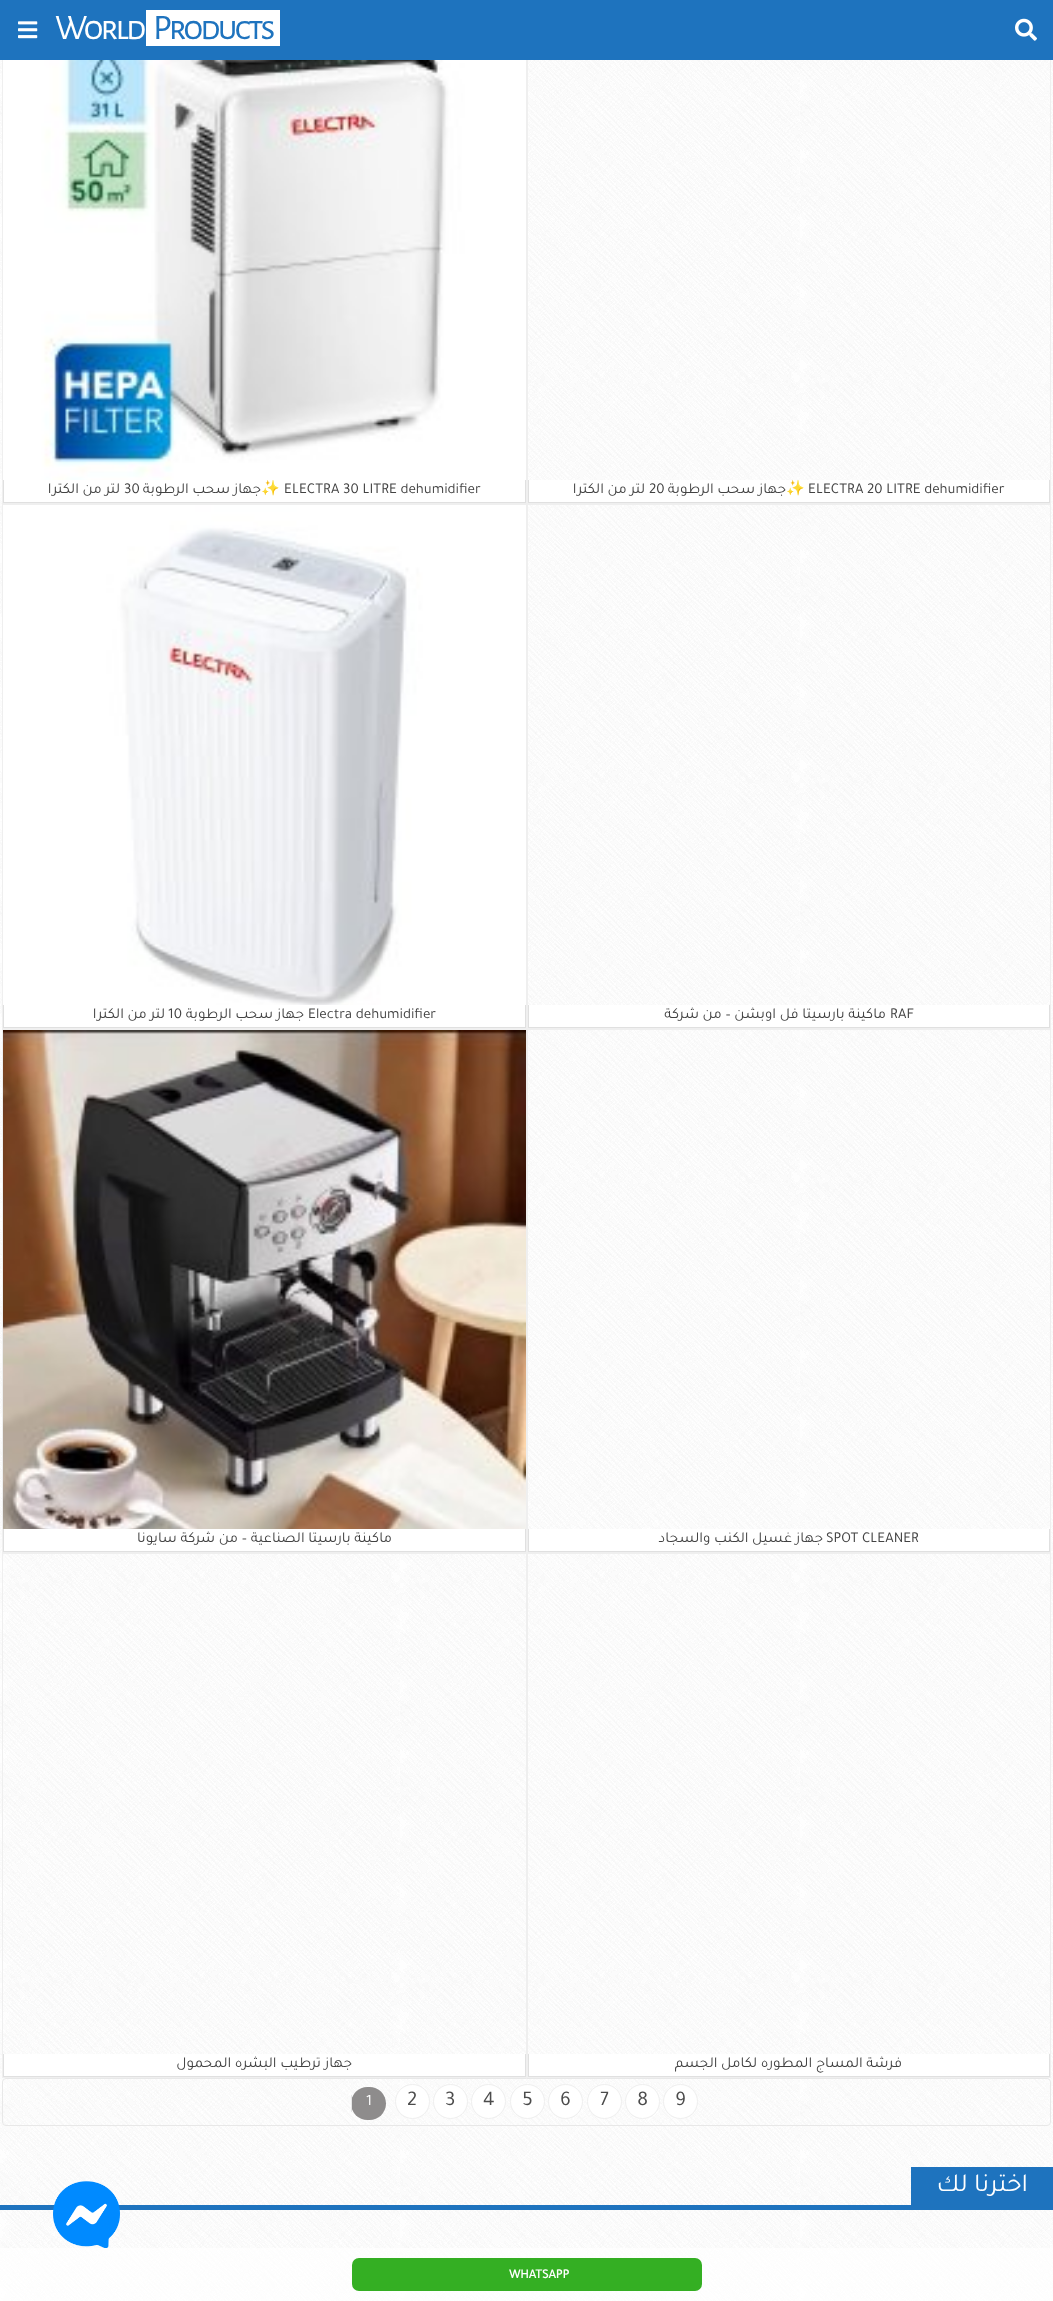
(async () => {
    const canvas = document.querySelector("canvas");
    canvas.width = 1053;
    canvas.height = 2301;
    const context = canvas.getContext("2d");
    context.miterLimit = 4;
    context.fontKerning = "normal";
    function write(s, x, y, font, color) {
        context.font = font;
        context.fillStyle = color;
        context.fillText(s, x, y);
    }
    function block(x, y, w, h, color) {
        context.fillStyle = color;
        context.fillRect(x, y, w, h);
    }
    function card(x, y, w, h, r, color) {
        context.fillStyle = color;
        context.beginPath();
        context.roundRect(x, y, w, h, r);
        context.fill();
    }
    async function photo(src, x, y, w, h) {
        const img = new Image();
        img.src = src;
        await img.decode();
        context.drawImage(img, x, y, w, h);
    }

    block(0, 0, 1053, 2301, "rgb(255, 255, 255)");
    await photo("media/1.png", 0, 60, 1053, 2241);
    context.strokeStyle = "rgb(239, 239, 239)";
    context.strokeRect(527.5, -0.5, 523, 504);
    context.strokeRect(2.5, -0.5, 524, 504);
    block(0, 0, 1053, 60, "rgb(30, 115, 190)");
    await photo("media/2.png", 1015, 18, 22, 23);
    block(146, 10, 134, 36, "rgb(255, 255, 255)");
    context.letterSpacing = "-3px";
    write("Products", 153, 39, "36px Alegreya Sans SC", "rgb(30, 115, 190)");
    write("World", 55, 39, "36px Alegreya Sans SC", "rgb(255, 255, 255)");
    await photo("media/3.png", 18, 21, 20, 18);
    block(529, 480, 520, 22, "rgb(255, 255, 255)");
    block(1049, 480, 1, 23, "rgb(224, 224, 224)");
    block(528, 502, 522, 1, "rgb(224, 224, 224)");
    block(528, 480, 1, 23, "rgb(224, 224, 224)");
    context.letterSpacing = "0px";
    write("ELECTRA 20 LITRE dehumidifier", 808, 493, "15px Tajawal", "rgb(66, 66, 66)");
    context.direction = "rtl";
    write("جهاز سحب الرطوبة", 786, 493, "15px Tajawal", "rgb(66, 66, 66)");
    context.direction = "ltr";
    write("✨", 786, 493, "15px Noto Color Emoji", "rgb(66, 66, 66)");
    write("20", 649, 493, "15px Tajawal", "rgb(66, 66, 66)");
    context.direction = "rtl";
    write("لتر من الكترا", 645, 493, "15px Tajawal", "rgb(66, 66, 66)");
    await photo("media/4.png", 3, 60, 523, 420);
    block(4, 480, 521, 22, "rgb(255, 255, 255)");
    block(525, 480, 1, 23, "rgb(224, 224, 224)");
    block(3, 502, 523, 1, "rgb(224, 224, 224)");
    block(3, 480, 1, 23, "rgb(224, 224, 224)");
    context.direction = "ltr";
    write("ELECTRA 30 LITRE dehumidifier", 284, 493, "15px Tajawal", "rgb(66, 66, 66)");
    write("✨", 261, 493, "15px Noto Color Emoji", "rgb(66, 66, 66)");
    context.direction = "rtl";
    write("جهاز سحب الرطوبة", 261, 493, "15px Tajawal", "rgb(66, 66, 66)");
    context.direction = "ltr";
    write("30", 124, 493, "15px Tajawal", "rgb(66, 66, 66)");
    context.direction = "rtl";
    write("لتر من الكترا", 120, 493, "15px Tajawal", "rgb(66, 66, 66)");
    context.strokeRect(527.5, 504.5, 523, 524);
    block(529, 1005, 520, 22, "rgb(255, 255, 255)");
    block(1049, 1005, 1, 23, "rgb(224, 224, 224)");
    block(528, 1027, 522, 1, "rgb(224, 224, 224)");
    block(528, 1005, 1, 23, "rgb(224, 224, 224)");
    context.direction = "ltr";
    write("RAF", 890, 1018, "15px Tajawal", "rgb(66, 66, 66)");
    context.direction = "rtl";
    write("ماكينة بارسيتا فل اوبشن", 886, 1018, "15px Tajawal", "rgb(66, 66, 66)");
    write("– من شركة", 731, 1018, "15px Tajawal", "rgb(66, 66, 66)");
    context.strokeRect(2.5, 504.5, 524, 524);
    await photo("media/5.png", 3, 505, 523, 500);
    block(4, 1005, 521, 22, "rgb(255, 255, 255)");
    block(525, 1005, 1, 23, "rgb(224, 224, 224)");
    block(3, 1027, 523, 1, "rgb(224, 224, 224)");
    block(3, 1005, 1, 23, "rgb(224, 224, 224)");
    context.direction = "ltr";
    write("Electra dehumidifier", 308, 1018, "15px Tajawal", "rgb(66, 66, 66)");
    context.direction = "rtl";
    write("جهاز سحب الرطوبة", 304, 1018, "15px Tajawal", "rgb(66, 66, 66)");
    context.direction = "ltr";
    write("10", 168, 1018, "15px Tajawal", "rgb(66, 66, 66)");
    context.direction = "rtl";
    write("لتر من الكترا", 165, 1018, "15px Tajawal", "rgb(66, 66, 66)");
    context.strokeRect(527.5, 1029.5, 523, 523);
    block(529, 1529, 520, 22, "rgb(255, 255, 255)");
    block(1049, 1529, 1, 23, "rgb(224, 224, 224)");
    block(528, 1551, 522, 1, "rgb(224, 224, 224)");
    block(528, 1529, 1, 23, "rgb(224, 224, 224)");
    context.direction = "ltr";
    write("SPOT CLEANER", 826, 1542, "15px Tajawal", "rgb(66, 66, 66)");
    context.direction = "rtl";
    write("جهاز غسيل الكنب والسجاد", 823, 1542, "15px Tajawal", "rgb(66, 66, 66)");
    context.strokeRect(2.5, 1029.5, 524, 523);
    await photo("media/6.png", 3, 1030, 523, 499);
    block(4, 1529, 521, 22, "rgb(255, 255, 255)");
    block(525, 1529, 1, 23, "rgb(224, 224, 224)");
    block(3, 1551, 523, 1, "rgb(224, 224, 224)");
    block(3, 1529, 1, 23, "rgb(224, 224, 224)");
    write("ماكينة بارسيتا الصناعية – من شركة سايونا", 392, 1542, "15px Tajawal", "rgb(66, 66, 66)");
    context.strokeRect(527.5, 1553.5, 523, 524);
    block(529, 2054, 520, 22, "rgb(255, 255, 255)");
    block(1049, 2054, 1, 23, "rgb(224, 224, 224)");
    block(528, 2076, 522, 1, "rgb(224, 224, 224)");
    block(528, 2054, 1, 23, "rgb(224, 224, 224)");
    write("فرشة المساج المطوره لكامل الجسم", 902, 2067, "15px Tajawal", "rgb(66, 66, 66)");
    context.strokeRect(2.5, 1553.5, 524, 524);
    block(4, 2054, 521, 22, "rgb(255, 255, 255)");
    block(525, 2054, 1, 23, "rgb(224, 224, 224)");
    block(3, 2076, 523, 1, "rgb(224, 224, 224)");
    block(3, 2054, 1, 23, "rgb(224, 224, 224)");
    write("جهاز ترطيب البشره المحمول", 352, 2067, "15px Tajawal", "rgb(66, 66, 66)");
    context.beginPath();
    context.roundRect(2.5, 2078.5, 1048, 47, 3.5);
    context.strokeStyle = "rgb(232, 232, 232)";
    context.stroke();
    context.fillStyle = "rgb(255, 255, 255)";
    context.beginPath();
    context.arc(680.5, 2101.5, 17, 0, Math.PI * 2);
    context.fill();
    context.strokeStyle = "rgb(239, 239, 239)";
    context.stroke();
    context.direction = "ltr";
    write("9", 675, 2105, "21px Tajawal", "rgb(76, 76, 76)");
    context.fillStyle = "rgb(255, 255, 255)";
    context.beginPath();
    context.arc(642.5, 2101.5, 17, 0, Math.PI * 2);
    context.fill();
    context.stroke();
    write("8", 637, 2105, "21px Tajawal", "rgb(76, 76, 76)");
    context.fillStyle = "rgb(255, 255, 255)";
    context.beginPath();
    context.arc(604.5, 2101.5, 17, 0, Math.PI * 2);
    context.fill();
    context.stroke();
    write("7", 600, 2105, "21px Tajawal", "rgb(76, 76, 76)");
    context.fillStyle = "rgb(255, 255, 255)";
    context.beginPath();
    context.arc(565.5, 2101.5, 17, 0, Math.PI * 2);
    context.fill();
    context.stroke();
    write("6", 560, 2105, "21px Tajawal", "rgb(76, 76, 76)");
    context.fillStyle = "rgb(255, 255, 255)";
    context.beginPath();
    context.arc(527.5, 2101.5, 17, 0, Math.PI * 2);
    context.fill();
    context.stroke();
    write("5", 522, 2105, "21px Tajawal", "rgb(76, 76, 76)");
    context.fillStyle = "rgb(255, 255, 255)";
    context.beginPath();
    context.arc(488.5, 2101.5, 17, 0, Math.PI * 2);
    context.fill();
    context.stroke();
    write("4", 483, 2105, "21px Tajawal", "rgb(76, 76, 76)");
    context.fillStyle = "rgb(255, 255, 255)";
    context.beginPath();
    context.arc(450.5, 2101.5, 17, 0, Math.PI * 2);
    context.fill();
    context.stroke();
    write("3", 445, 2105, "21px Tajawal", "rgb(76, 76, 76)");
    context.fillStyle = "rgb(255, 255, 255)";
    context.beginPath();
    context.arc(412.5, 2101.5, 17, 0, Math.PI * 2);
    context.fill();
    context.stroke();
    write("2", 407, 2105, "21px Tajawal", "rgb(76, 76, 76)");
    card(351, 2087, 35, 33, 16.5, "rgb(142, 140, 140)");
    block(351, 2095, 1, 17, "rgb(230, 230, 230)");
    write("1", 366, 2105, "16px Tajawal", "rgb(255, 255, 255)");
    block(911, 2167, 142, 38, "rgb(30, 115, 190)");
    context.direction = "rtl";
    write("اخترنا لك", 1028, 2191, "26px Tajawal", "rgb(255, 255, 255)");
    block(0, 2205, 1053, 5, "rgb(30, 115, 190)");
    await photo("media/7.png", 53, 2181, 67, 67);
    block(0, 2248, 1053, 53, "rgba(255, 255, 255, 0.7)");
    card(352, 2258, 350, 33, 7, "rgb(52, 175, 35)");
    context.direction = "ltr";
    write("WHATSAPP", 509, 2278, "bold 13px Tajawal", "rgb(255, 255, 255)");
})();
